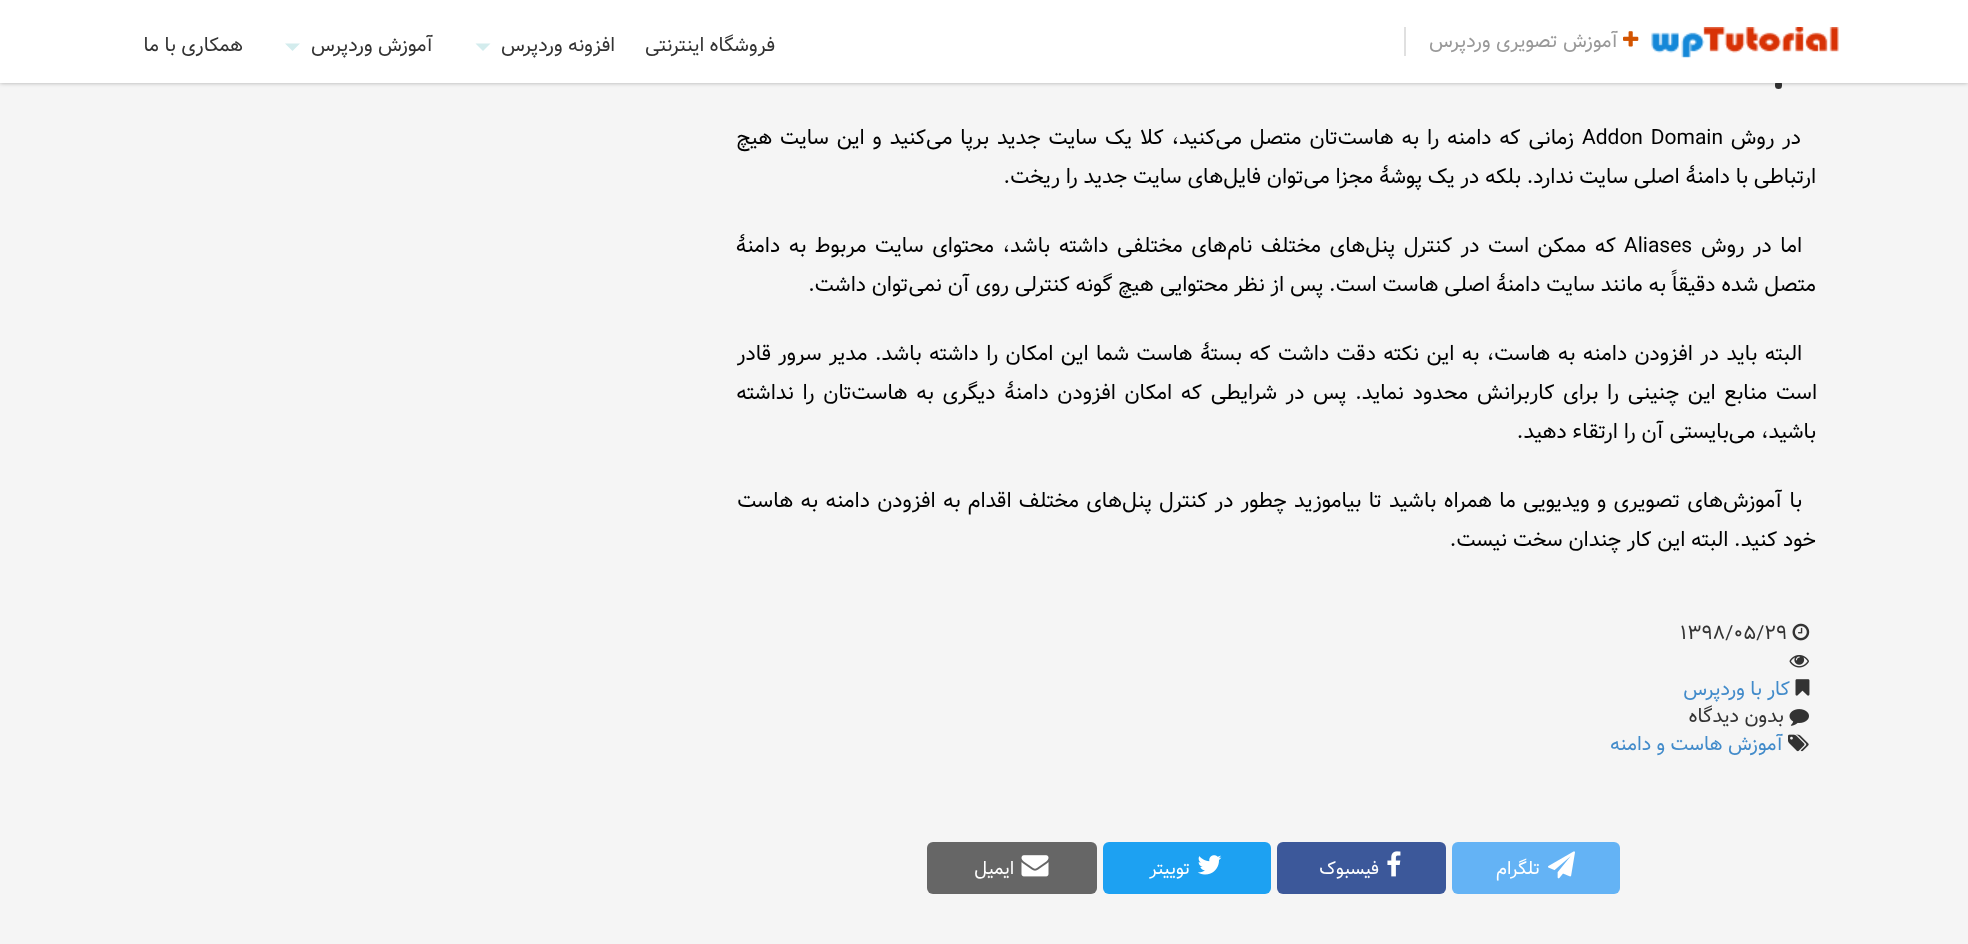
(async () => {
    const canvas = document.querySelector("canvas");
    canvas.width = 1968;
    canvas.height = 944;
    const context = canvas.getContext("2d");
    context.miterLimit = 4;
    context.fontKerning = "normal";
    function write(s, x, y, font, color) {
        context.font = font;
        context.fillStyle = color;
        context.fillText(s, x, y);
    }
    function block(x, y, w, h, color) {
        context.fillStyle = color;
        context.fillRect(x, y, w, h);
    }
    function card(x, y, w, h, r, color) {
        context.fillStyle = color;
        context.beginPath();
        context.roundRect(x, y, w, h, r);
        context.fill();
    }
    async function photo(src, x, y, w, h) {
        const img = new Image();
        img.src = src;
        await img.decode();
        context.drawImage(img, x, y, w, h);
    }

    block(0, 0, 1968, 944, "rgb(245, 245, 245)");
    card(1775, 81, 7, 8, 3.5, "rgb(51, 51, 51)");
    context.fillStyle = "rgba(0, 0, 0, 0.3)";
    context.filter = "blur(2px)";
    context.beginPath();
    context.rect(0, 0, 1968, 83);
    context.fill();
    context.filter = "none";
    block(0, 0, 1968, 83, "rgb(255, 255, 255)");
    await photo("media/1.png", 1651, 27, 188, 31);
    block(1404, 27, 2, 29, "rgb(224, 224, 224)");
    await photo("media/2.png", 1623, 31, 16, 16);
    context.direction = "rtl";
    write("آموزش تصویری وردپرس", 1618, 47, "19.5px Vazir", "rgb(153, 153, 153)");
    write("فروشگاه اینترنتی", 775, 51, "19.5px Vazir", "rgb(51, 51, 51)");
    write("افزونه وردپرس", 615, 51, "19.5px Vazir", "rgb(51, 51, 51)");
    context.fillStyle = "rgb(211, 236, 237)";
    context.beginPath();
    context.moveTo(475.5, 43.5);
    context.lineTo(490.5, 43.5);
    context.lineTo(483, 51);
    context.closePath();
    context.fill();
    write("آموزش وردپرس", 433, 51, "19.5px Vazir", "rgb(51, 51, 51)");
    context.fillStyle = "rgb(211, 236, 237)";
    context.beginPath();
    context.moveTo(285, 43.5);
    context.lineTo(300, 43.5);
    context.lineTo(292.5, 51);
    context.closePath();
    context.fill();
    write("همکاری با ما", 243, 51, "19.5px Vazir", "rgb(51, 51, 51)");
    context.wordSpacing = "2.1px";
    write("در روش", 1801, 144, "21px Vazir", "rgb(0, 0, 0)");
    context.direction = "ltr";
    write("Addon Domain", 1582, 144, "21px Vazir", "rgb(0, 0, 0)");
    context.direction = "rtl";
    write("زمانی که دامنه را به هاست‌تان متصل می‌کنید، کلا یک سایت جدید برپا می‌کنید و این سایت هیچ", 1574, 144, "21px Vazir", "rgb(0, 0, 0)");
    context.wordSpacing = "0px";
    write("ارتباطی با دامنهٔ اصلی سایت ندارد. بلکه در یک پوشهٔ مجزا می‌توان فایل‌های سایت جدید را ریخت.", 1816, 183, "21px Vazir", "rgb(0, 0, 0)");
    context.wordSpacing = "2.75px";
    write("اما در روش", 1802, 252, "21px Vazir", "rgb(0, 0, 0)");
    context.wordSpacing = "0px";
    context.direction = "ltr";
    write("Aliases", 1624, 252, "21px Vazir", "rgb(0, 0, 0)");
    context.wordSpacing = "2.75px";
    context.direction = "rtl";
    write("که ممکن است در کنترل پنل‌های مختلف نام‌های مختلفی داشته باشد، محتوای سایت مربوط به دامنهٔ", 1616, 252, "21px Vazir", "rgb(0, 0, 0)");
    context.wordSpacing = "0px";
    write("متصل شده دقیقاً به مانند سایت دامنهٔ اصلی هاست است. پس از نظر محتوایی هیچ گونه کنترلی روی آن نمی‌توان داشت.", 1816, 291, "21px Vazir", "rgb(0, 0, 0)");
    context.wordSpacing = "1.6px";
    write("البته باید در افزودن دامنه به هاست، به این نکته دقت داشت که بستهٔ هاست شما این امکان را داشته باشد. مدیر سرور قادر", 1802, 360, "21px Vazir", "rgb(0, 0, 0)");
    context.wordSpacing = "2.9px";
    write("است منابع این چنینی را برای کاربرانش محدود نماید. پس در شرایطی که امکان افزودن دامنهٔ دیگری به هاست‌تان را نداشته", 1817, 399, "21px Vazir", "rgb(0, 0, 0)");
    context.wordSpacing = "0px";
    write("باشید، می‌بایستی آن را ارتقاء دهید.", 1816, 438, "21px Vazir", "rgb(0, 0, 0)");
    context.wordSpacing = "1.5px";
    write("با آموزش‌های تصویری و ویدیویی ما همراه باشید تا بیاموزید چطور در کنترل پنل‌های مختلف اقدام به افزودن دامنه به هاست", 1802, 507, "21px Vazir", "rgb(0, 0, 0)");
    context.wordSpacing = "0px";
    write("خود کنید. البته این کار چندان سخت نیست.", 1816, 546, "21px Vazir", "rgb(0, 0, 0)");
    await photo("media/3.png", 1792, 623, 18, 18);
    context.direction = "ltr";
    write("۱۳۹۸/۰۵/۲۹", 1680, 639, "19.5px Vazir", "rgb(51, 51, 51)");
    await photo("media/4.png", 1789, 655, 20, 13);
    await photo("media/5.png", 1795, 679, 15, 17);
    context.direction = "rtl";
    write("کار با وردپرس", 1790, 695, "19.5px Vazir", "rgb(66, 139, 202)");
    await photo("media/6.png", 1789, 709, 20, 17);
    write("بدون دیدگاه", 1784, 722, "19.5px Vazir", "rgb(51, 51, 51)");
    await photo("media/7.png", 1788, 734, 21, 18);
    write("آموزش هاست و دامنه", 1783, 750, "19.5px Vazir", "rgb(66, 139, 202)");
    card(1452, 842, 168, 52, 6, "rgb(100, 179, 245)");
    await photo("media/8.png", 1548, 851, 27, 28);
    write("تلگرام", 1540, 874, "18px Vazir", "rgb(255, 255, 255)");
    card(1277, 842, 169, 52, 6, "rgb(60, 88, 154)");
    await photo("media/9.png", 1387, 851, 14, 26);
    write("فیسبوک", 1379, 874, "18px Vazir", "rgb(255, 255, 255)");
    card(1103, 842, 168, 52, 6, "rgb(29, 161, 242)");
    await photo("media/10.png", 1197, 855, 25, 20);
    write("توییتر", 1190, 874, "18px Vazir", "rgb(255, 255, 255)");
    card(927, 842, 170, 52, 6, "rgb(102, 102, 102)");
    await photo("media/11.png", 1021, 855, 28, 22);
    write("ایمیل", 1014, 874, "18px Vazir", "rgb(255, 255, 255)");
})();
